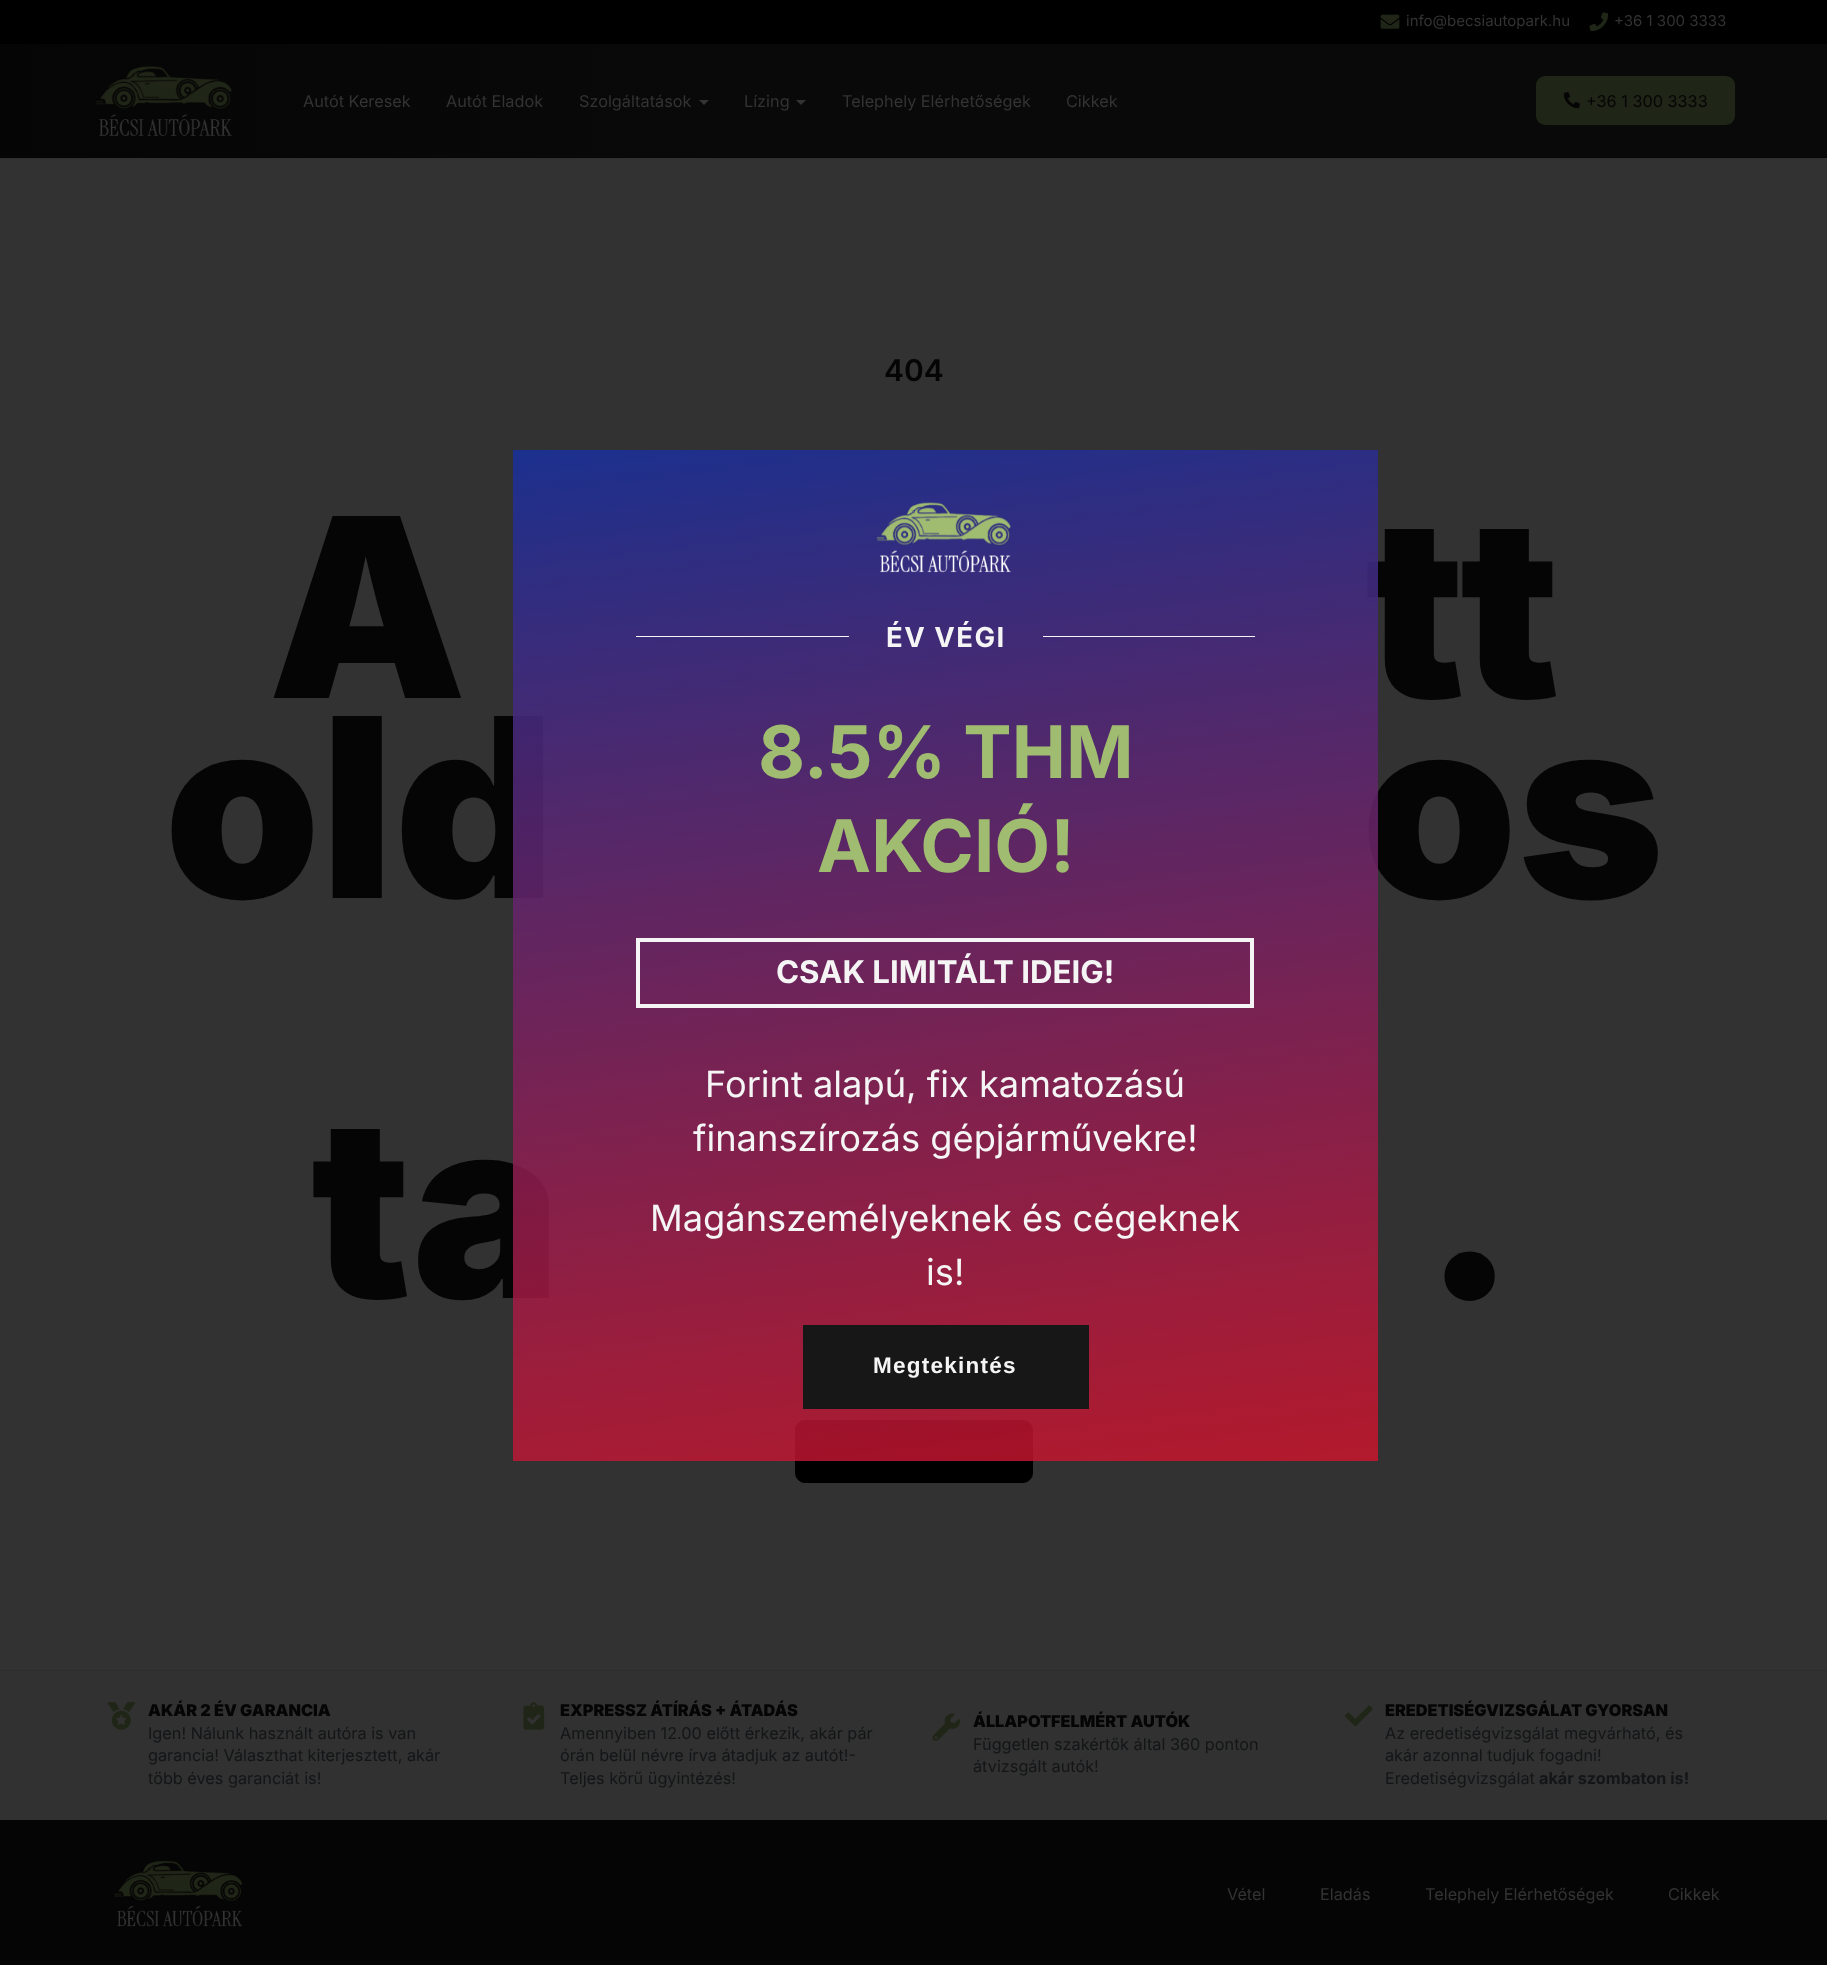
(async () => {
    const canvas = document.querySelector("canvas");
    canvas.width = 1827;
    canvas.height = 1965;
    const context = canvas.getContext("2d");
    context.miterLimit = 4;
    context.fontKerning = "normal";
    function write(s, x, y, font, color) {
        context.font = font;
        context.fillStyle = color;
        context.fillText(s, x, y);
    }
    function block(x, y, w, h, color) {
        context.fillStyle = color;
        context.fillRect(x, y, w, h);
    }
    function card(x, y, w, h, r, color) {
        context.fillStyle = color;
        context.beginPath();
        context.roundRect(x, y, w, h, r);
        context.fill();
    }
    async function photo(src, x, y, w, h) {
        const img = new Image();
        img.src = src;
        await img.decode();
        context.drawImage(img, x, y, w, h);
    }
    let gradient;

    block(0, 0, 1827, 1965, "rgb(0, 0, 0)");
    await photo("media/1.png", 1380, 14, 20, 15);
    write("info@becsiautopark.hu", 1406, 26, "15px Inter", "rgb(51, 51, 51)");
    await photo("media/2.png", 1589, 12, 20, 20);
    write("+36 1 300 3333", 1614, 26, "15px Inter", "rgb(51, 51, 51)");
    gradient = context.createLinearGradient(0, 101, 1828, 101);
    gradient.addColorStop(0, "rgb(5, 5, 5)");
    gradient.addColorStop(0.39, "rgb(9, 9, 9)");
    context.fillStyle = gradient;
    context.fillRect(0, 44, 1827, 114);
    await photo("media/3.png", 95, 66, 137, 70);
    write("Autót Keresek", 303, 107, "16.25px Inter", "rgb(51, 51, 51)");
    write("Autót Eladok", 446, 107, "16.25px Inter", "rgb(51, 51, 51)");
    write("Szolgáltatások", 579, 107, "16.25px Inter", "rgb(51, 51, 51)");
    context.beginPath();
    context.moveTo(699, 100);
    context.lineTo(709, 100);
    context.lineTo(704, 105);
    context.closePath();
    context.fill();
    write("Lízing", 744, 107, "16.25px Inter", "rgb(51, 51, 51)");
    context.beginPath();
    context.moveTo(796, 100);
    context.lineTo(806, 100);
    context.lineTo(801, 105);
    context.closePath();
    context.fill();
    write("Telephely Elérhetőségek", 842, 107, "16.25px Inter", "rgb(51, 51, 51)");
    write("Cikkek", 1066, 107, "16.25px Inter", "rgb(51, 51, 51)");
    card(1536, 76, 199, 49, 9, "rgb(32, 38, 23)");
    await photo("media/4.png", 1563, 92, 17, 17);
    write("+36 1 300 3333", 1586, 107, "16.25px Inter", "rgb(5, 5, 5)");
    block(0, 159, 1827, 1511, "rgb(50, 50, 50)");
    block(0, 158, 1827, 1, "rgb(47, 47, 47)");
    write("404", 884, 381, "600 30px Inter", "rgb(5, 5, 5)");
    write("A", 268, 698, "900 250px Inter", "rgb(5, 5, 5)");
    write("tt", 1365, 698, "900 250px Inter", "rgb(5, 5, 5)");
    write("old", 164, 898, "900 250px Inter", "rgb(5, 5, 5)");
    write("os", 1361, 898, "900 250px Inter", "rgb(5, 5, 5)");
    write("ta", 311, 1298, "900 250px Inter", "rgb(5, 5, 5)");
    write(".", 1423, 1298, "900 250px Inter", "rgb(5, 5, 5)");
    context.fillStyle = "rgb(0, 0, 0)";
    context.beginPath();
    context.roundRect(795.5, 1420.5, 237, 62, 9.5);
    context.fill();
    context.strokeStyle = "rgb(0, 0, 0)";
    context.stroke();
    block(0, 1671, 1827, 149, "rgb(49, 49, 49)");
    block(0, 1670, 1827, 1, "rgb(46, 46, 46)");
    await photo("media/5.png", 107, 1702, 28, 28);
    write("AKÁR 2 ÉV GARANCIA", 148, 1716, "900 16.25px Inter", "rgb(5, 5, 5)");
    write("Igen! Nálunk használt autóra is van", 148, 1739, "16.25px Inter", "rgb(19, 21, 23)");
    write("garancia! Választhat kiterjesztett, akár", 148, 1761, "16.25px Inter", "rgb(19, 21, 23)");
    write("több éves garanciát is!", 148, 1784, "16.25px Inter", "rgb(19, 21, 23)");
    await photo("media/6.png", 523, 1702, 22, 28);
    write("EXPRESSZ ÁTÍRÁS + ÁTADÁS", 560, 1716, "900 16.25px Inter", "rgb(5, 5, 5)");
    write("Amennyiben 12.00 előtt érkezik, akár pár", 560, 1739, "16.25px Inter", "rgb(19, 21, 23)");
    write("órán belül névre írva átadjuk az autót!-", 560, 1761, "16.25px Inter", "rgb(19, 21, 23)");
    write("Teljes körű ügyintézés!", 560, 1784, "16.25px Inter", "rgb(19, 21, 23)");
    await photo("media/7.png", 932, 1713, 28, 28);
    write("ÁLLAPOTFELMÉRT AUTÓK", 973, 1727, "900 16.25px Inter", "rgb(5, 5, 5)");
    write("Független szakértők által 360 ponton", 973, 1750, "16.25px Inter", "rgb(19, 21, 23)");
    write("átvizsgált autók!", 973, 1772, "16.25px Inter", "rgb(19, 21, 23)");
    await photo("media/8.png", 1345, 1705, 28, 22);
    write("EREDETISÉGVIZSGÁLAT GYORSAN", 1385, 1716, "900 16.25px Inter", "rgb(5, 5, 5)");
    write("Az eredetiségvizsgálat megvárható, és", 1385, 1739, "16.25px Inter", "rgb(19, 21, 23)");
    write("akár azonnal tudjuk fogadni!", 1385, 1761, "16.25px Inter", "rgb(19, 21, 23)");
    write("Eredetiségvizsgálat", 1385, 1784, "16.25px Inter", "rgb(19, 21, 23)");
    write("akár szombaton is!", 1539, 1784, "bold 16.25px Inter", "rgb(19, 21, 23)");
    block(0, 1820, 1827, 145, "rgb(5, 5, 5)");
    await photo("media/9.png", 113, 1860, 130, 67);
    write("Vétel", 1227, 1900, "16.25px Inter", "rgb(51, 51, 51)");
    write("Eladás", 1320, 1900, "16.25px Inter", "rgb(51, 51, 51)");
    write("Telephely Elérhetőségek", 1425, 1900, "16.25px Inter", "rgb(51, 51, 51)");
    write("Cikkek", 1668, 1900, "16.25px Inter", "rgb(51, 51, 51)");
    gradient = context.createLinearGradient(1013, 1506, 877, 405);
    gradient.addColorStop(0, "rgba(209, 20, 43, 0.81)");
    gradient.addColorStop(1, "rgba(25, 48, 151, 0.91)");
    context.fillStyle = gradient;
    context.fillRect(513, 450, 865, 1011);
    await photo("media/10.png", 876, 502, 135, 71);
    block(636, 636, 213, 1, "rgb(245, 245, 245)");
    context.letterSpacing = "1.5px";
    write("ÉV VÉGI", 886, 647, "bold 27.5px Inter", "rgb(245, 245, 245)");
    block(1043, 636, 212, 1, "rgb(245, 245, 245)");
    context.letterSpacing = "0px";
    write("8.5% THM", 758, 778, "bold 72.5px Inter", "rgb(160, 188, 113)");
    write("AKCIÓ!", 817, 872, "bold 72.5px Inter", "rgb(160, 188, 113)");
    context.strokeStyle = "rgb(245, 245, 245)";
    context.lineWidth = 4;
    context.strokeRect(638, 940, 614, 66);
    write("CSAK LIMITÁLT IDEIG!", 776, 983, "bold 31.25px Inter", "rgb(245, 245, 245)");
    write("Forint alapú, fix kamatozású", 705, 1097, "36.25px Inter", "rgb(245, 245, 245)");
    write("finanszírozás gépjárművekre!", 693, 1151, "36.25px Inter", "rgb(245, 245, 245)");
    write("Magánszemélyeknek és cégeknek", 650, 1231, "36.25px Inter", "rgb(245, 245, 245)");
    write("is!", 926, 1285, "36.25px Inter", "rgb(245, 245, 245)");
    block(803, 1325, 286, 84, "rgb(23, 23, 23)");
    context.letterSpacing = "1.25px";
    write("Megtekintés", 873, 1373, "bold 22.5px Liberation Sans", "rgb(245, 245, 245)");
})();
